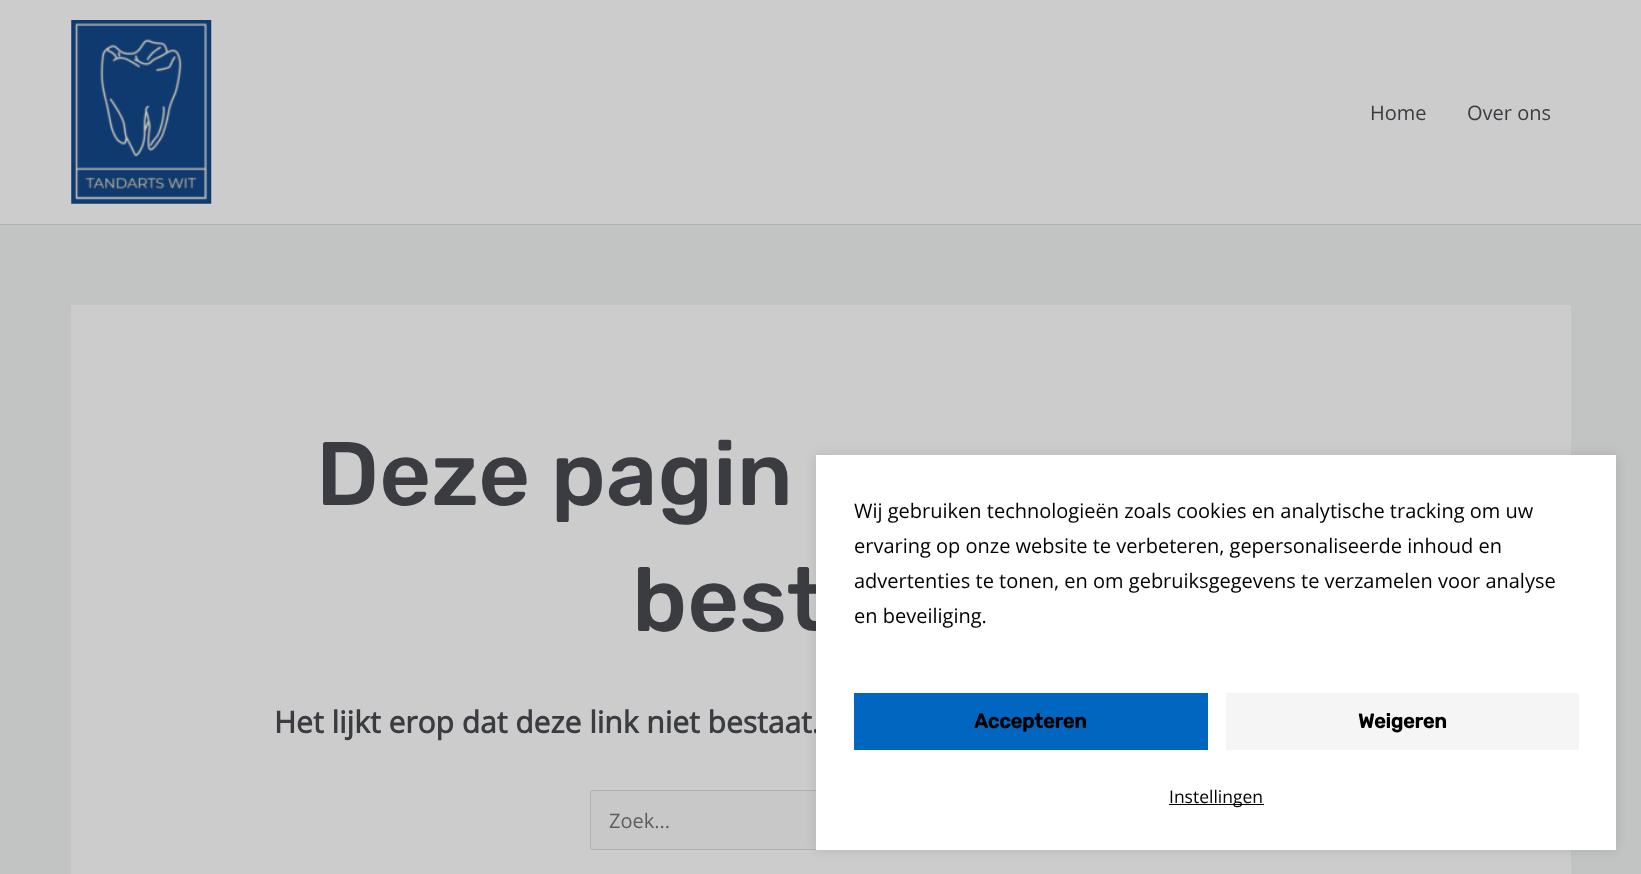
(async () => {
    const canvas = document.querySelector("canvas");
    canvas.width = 1641;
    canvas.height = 874;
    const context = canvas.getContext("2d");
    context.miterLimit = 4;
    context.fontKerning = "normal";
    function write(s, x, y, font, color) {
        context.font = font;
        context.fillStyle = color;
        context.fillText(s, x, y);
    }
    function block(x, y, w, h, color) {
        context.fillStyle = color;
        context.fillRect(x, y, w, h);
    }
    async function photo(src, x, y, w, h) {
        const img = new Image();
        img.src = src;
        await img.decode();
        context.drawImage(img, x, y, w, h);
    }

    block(0, 0, 1641, 874, "rgb(194, 196, 196)");
    block(0, 0, 1641, 224, "rgb(204, 204, 204)");
    block(0, 224, 1641, 1, "rgb(177, 177, 177)");
    await photo("media/1.png", 71, 20, 141, 184);
    write("Home", 1370, 120, "20px Open Sans", "rgb(58, 60, 65)");
    write("Over ons", 1467, 120, "20px Open Sans", "rgb(58, 60, 65)");
    block(71, 305, 1500, 569, "rgb(204, 204, 204)");
    write("Deze pagin", 316, 505, "300 90px Rubik", "rgb(58, 60, 65)");
    write("best", 632, 631, "300 90px Rubik", "rgb(58, 60, 65)");
    write("Het lijkt erop dat deze link niet bestaat.", 274, 733, "bold 30px Open Sans", "rgb(58, 60, 65)");
    context.fillStyle = "rgb(200, 200, 200)";
    context.beginPath();
    context.roundRect(590.5, 790.5, 462, 59, 2);
    context.fill();
    context.strokeStyle = "rgb(177, 177, 177)";
    context.stroke();
    write("Zoek...", 609, 828, "20px Open Sans", "rgb(94, 94, 94)");
    context.fillStyle = "rgba(0, 0, 0, 0.1)";
    context.filter = "blur(6px)";
    context.beginPath();
    context.rect(816, 455, 800, 395);
    context.fill();
    context.filter = "none";
    block(816, 455, 800, 395, "rgb(255, 255, 255)");
    write("Wij gebruiken technologieën zoals cookies en analytische tracking om uw", 854, 518, "20px Open Sans", "rgb(0, 0, 0)");
    write("ervaring op onze website te verbeteren, gepersonaliseerde inhoud en", 854, 553, "20px Open Sans", "rgb(0, 0, 0)");
    write("advertenties te tonen, en om gebruiksgegevens te verzamelen voor analyse", 854, 588, "20px Open Sans", "rgb(0, 0, 0)");
    write("en beveiliging.", 854, 623, "20px Open Sans", "rgb(0, 0, 0)");
    block(854, 693, 354, 57, "rgb(0, 102, 191)");
    write("Accepteren", 974, 728, "bold 20px Rubik", "rgb(0, 0, 0)");
    block(1226, 693, 353, 57, "rgb(245, 245, 245)");
    write("Weigeren", 1358, 728, "bold 20px Rubik", "rgb(0, 0, 0)");
    block(1169, 804, 95, 1, "rgb(0, 0, 0)");
    write("Instellingen", 1169, 803, "17.5px Open Sans", "rgb(0, 0, 0)");
})();
